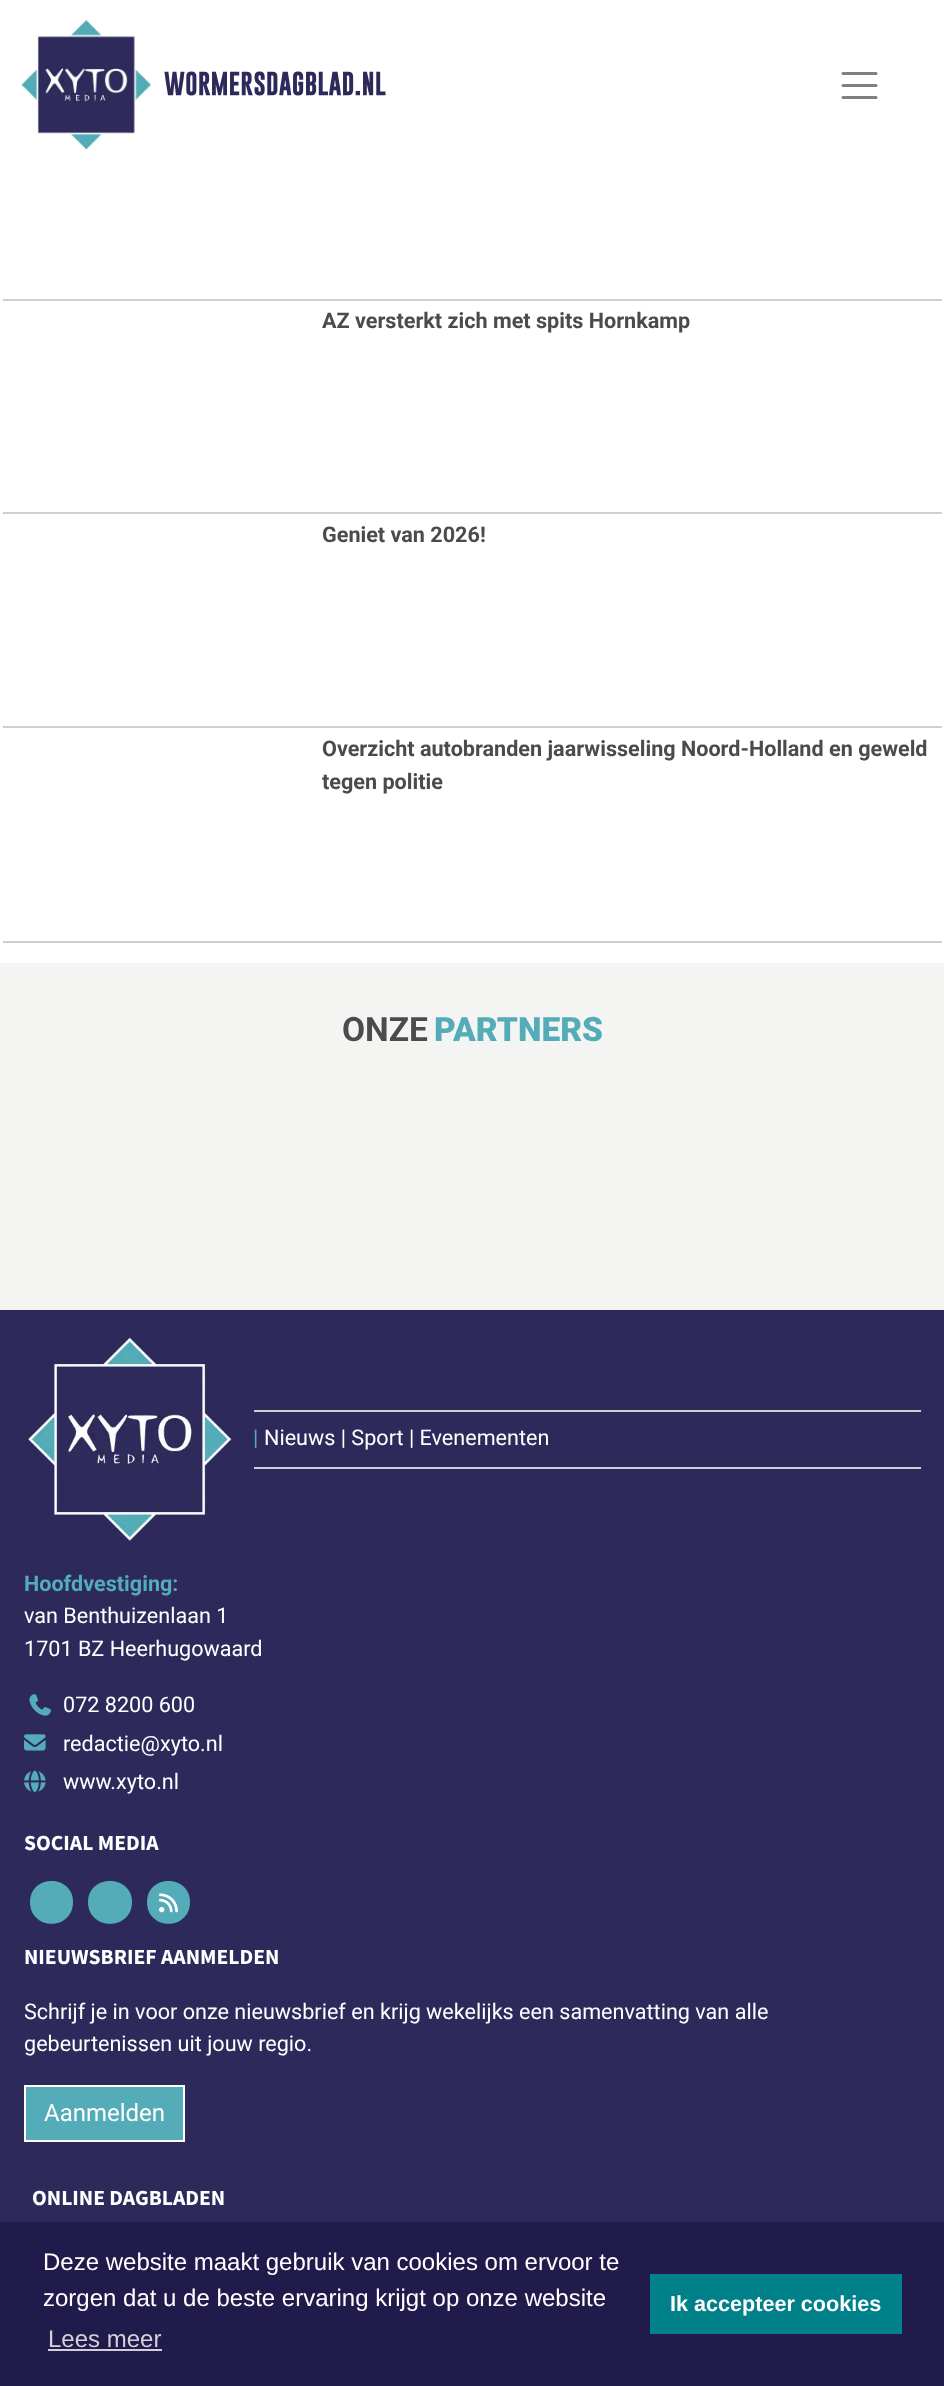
(async () => {
    const canvas = document.querySelector("canvas");
    canvas.width = 944;
    canvas.height = 2386;
    const context = canvas.getContext("2d");
    context.miterLimit = 4;
    context.fontKerning = "normal";
    function write(s, x, y, font, color) {
        context.font = font;
        context.fillStyle = color;
        context.fillText(s, x, y);
    }
    function block(x, y, w, h, color) {
        context.fillStyle = color;
        context.fillRect(x, y, w, h);
    }
    async function photo(src, x, y, w, h) {
        const img = new Image();
        img.src = src;
        await img.decode();
        context.drawImage(img, x, y, w, h);
    }

    block(0, 0, 944, 2386, "rgb(255, 255, 255)");
    await photo("media/1.png", 20, 19, 132, 131);
    write("WORMERSDAGBLAD.NL", 164, 95, "bold 24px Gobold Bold", "rgb(45, 42, 91)");
    context.beginPath();
    context.moveTo(843, 73.5);
    context.lineTo(876, 73.5);
    context.moveTo(843, 85.5);
    context.lineTo(876, 85.5);
    context.moveTo(843, 97.5);
    context.lineTo(876, 97.5);
    context.strokeStyle = "rgb(128, 128, 128)";
    context.lineWidth = 3;
    context.lineCap = "round";
    context.stroke();
    block(3, 299, 939, 2, "rgb(207, 207, 207)");
    block(3, 512, 939, 2, "rgb(207, 207, 207)");
    write("AZ versterkt zich met spits Hornkamp", 322, 328, "bold 21.6px Roboto", "rgb(76, 75, 75)");
    block(3, 726, 939, 2, "rgb(207, 207, 207)");
    write("Geniet van 2026!", 322, 542, "bold 21.6px Roboto", "rgb(76, 75, 75)");
    block(3, 941, 939, 2, "rgb(207, 207, 207)");
    write("Overzicht autobranden jaarwisseling Noord-Holland en geweld", 322, 756, "bold 21.6px Roboto", "rgb(76, 75, 75)");
    write("tegen politie", 322, 789, "bold 21.6px Roboto", "rgb(76, 75, 75)");
    block(0, 963, 944, 347, "rgb(244, 244, 242)");
    write("ONZE", 342, 1041, "bold 33.5px Roboto", "rgb(76, 75, 75)");
    write("PARTNERS", 434, 1041, "900 33.5px Roboto", "rgb(83, 172, 184)");
    block(0, 1310, 944, 912, "rgb(45, 42, 91)");
    await photo("media/2.png", 28, 1337, 204, 204);
    block(254, 1410, 667, 2, "rgb(207, 207, 207)");
    block(254, 1467, 667, 2, "rgb(207, 207, 207)");
    write("|", 253, 1445, "21.6px Roboto", "rgb(83, 172, 184)");
    write("Nieuws | Sport | Evenementen", 264, 1445, "21.6px Roboto", "rgb(255, 255, 255)");
    write("Hoofdvestiging:", 24, 1591, "bold 21.6px Roboto", "rgb(83, 172, 184)");
    write("van Benthuizenlaan 1", 24, 1623, "21.6px Roboto", "rgb(255, 255, 255)");
    write("1701 BZ Heerhugowaard", 24, 1656, "21.6px Roboto", "rgb(255, 255, 255)");
    await photo("media/3.png", 29, 1694, 22, 22);
    write("072 8200 600", 63, 1712, "21.6px Roboto", "rgb(255, 255, 255)");
    await photo("media/4.png", 24, 1734, 22, 17);
    write("redactie@xyto.nl", 63, 1751, "21.6px Roboto", "rgb(255, 255, 255)");
    await photo("media/5.png", 24, 1770, 22, 23);
    write("www.xyto.nl", 63, 1789, "21.6px Roboto", "rgb(255, 255, 255)");
    write("SOCIAL MEDIA", 24, 1850, "bold 21.6px Source Sans Pro", "rgb(255, 255, 255)");
    context.fillStyle = "rgb(83, 172, 184)";
    context.beginPath();
    context.moveTo(30, 1902);
    context.bezierCurveTo(30, 1874, 73, 1874, 73, 1902);
    context.bezierCurveTo(73, 1931, 30, 1931, 30, 1902);
    context.closePath();
    context.fill();
    context.beginPath();
    context.moveTo(88, 1902);
    context.bezierCurveTo(88, 1874, 132, 1874, 132, 1902);
    context.bezierCurveTo(132, 1931, 88, 1931, 88, 1902);
    context.closePath();
    context.fill();
    context.beginPath();
    context.moveTo(147, 1902);
    context.bezierCurveTo(147, 1874, 190, 1874, 190, 1902);
    context.bezierCurveTo(190, 1931, 147, 1931, 147, 1902);
    context.closePath();
    context.fill();
    await photo("media/6.png", 159, 1893, 19, 20);
    write("NIEUWSBRIEF AANMELDEN", 24, 1964, "bold 21.6px Source Sans Pro", "rgb(255, 255, 255)");
    write("Schrijf je in voor onze nieuwsbrief en krijg wekelijks een samenvatting van alle", 24, 2019, "21.6px Roboto", "rgb(255, 255, 255)");
    write("gebeurtenissen uit jouw regio.", 24, 2051, "21.6px Roboto", "rgb(255, 255, 255)");
    context.fillStyle = "rgb(83, 172, 184)";
    context.beginPath();
    context.rect(25, 2086, 159, 55);
    context.fill();
    context.strokeStyle = "rgb(255, 255, 255)";
    context.lineWidth = 2;
    context.stroke();
    write("Aanmelden", 44, 2121, "24px Roboto", "rgb(255, 255, 255)");
    write("ONLINE DAGBLADEN", 32, 2205, "bold 21.6px Source Sans Pro", "rgb(255, 255, 255)");
    block(0, 2222, 944, 164, "rgb(32, 27, 74)");
    write("Deze website maakt gebruik van cookies om ervoor te", 43, 2270, "24px Liberation Sans", "rgb(255, 255, 255)");
    write("zorgen dat u de beste ervaring krijgt op onze website", 43, 2306, "24px Liberation Sans", "rgb(255, 255, 255)");
    write("Lees meer", 48, 2347, "24px Liberation Sans", "rgb(210, 209, 219)");
    block(48, 2349, 114, 2, "rgb(210, 209, 219)");
    block(650, 2274, 252, 60, "rgb(0, 129, 138)");
    write("Ik accepteer cookies", 670, 2311, "bold 21.6px Liberation Sans", "rgb(255, 255, 255)");
})();
